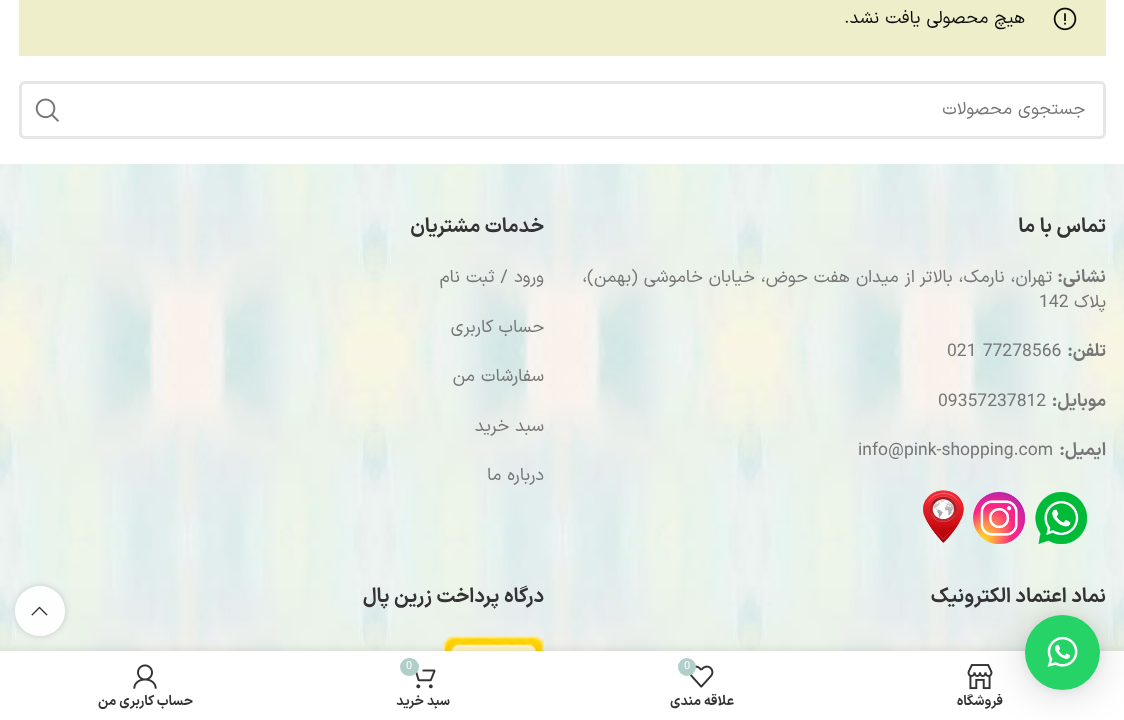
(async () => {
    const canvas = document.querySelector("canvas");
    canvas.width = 1124;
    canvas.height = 720;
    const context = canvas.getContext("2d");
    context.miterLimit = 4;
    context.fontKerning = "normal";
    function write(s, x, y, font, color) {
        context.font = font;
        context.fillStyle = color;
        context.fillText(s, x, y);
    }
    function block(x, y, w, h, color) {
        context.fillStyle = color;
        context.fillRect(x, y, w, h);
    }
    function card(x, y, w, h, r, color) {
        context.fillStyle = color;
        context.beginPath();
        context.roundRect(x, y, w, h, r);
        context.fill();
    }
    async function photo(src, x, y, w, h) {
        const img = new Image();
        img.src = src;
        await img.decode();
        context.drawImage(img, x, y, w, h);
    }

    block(0, 0, 1124, 720, "rgb(255, 255, 255)");
    block(19, 0, 1087, 56, "rgb(238, 238, 202)");
    await photo("media/1.png", 1053, 7, 24, 24);
    context.direction = "rtl";
    write("هیچ محصولی یافت نشد.", 1025, 23, "17.5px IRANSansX", "rgb(10, 10, 10)");
    context.beginPath();
    context.roundRect(20.5, 82.5, 1084, 55, 4.5);
    context.strokeStyle = "rgb(230, 230, 230)";
    context.lineWidth = 3;
    context.stroke();
    write("جستجوی محصولات", 1085, 114, "17.5px IRANSansX", "rgb(118, 118, 118)");
    await photo("media/2.png", 35, 98, 24, 24);
    await photo("media/3.png", 0, 164, 1124, 487);
    write("تماس با ما", 1106, 232, "bold 20px IRANSansX", "rgb(51, 51, 51)");
    write("نشانی:", 1106, 282, "bold 17.5px IRANSansX", "rgb(118, 118, 118)");
    write("تهران، نارمک، بالاتر از میدان هفت حوض، خیابان خاموشی (بهمن)،", 1052, 282, "17.5px IRANSansX", "rgb(118, 118, 118)");
    write("پلاک", 1106, 307, "17.5px IRANSansX", "rgb(118, 118, 118)");
    context.direction = "ltr";
    write("142", 1039, 307, "17.5px IRANSansX", "rgb(118, 118, 118)");
    context.direction = "rtl";
    write("تلفن:", 1106, 356, "bold 17.5px IRANSansX", "rgb(118, 118, 118)");
    context.direction = "ltr";
    write("021 77278566", 947, 356, "17.5px IRANSansX", "rgb(118, 118, 118)");
    context.direction = "rtl";
    write("موبایل:", 1106, 406, "bold 17.5px IRANSansX", "rgb(118, 118, 118)");
    context.direction = "ltr";
    write("09357237812", 938, 406, "17.5px IRANSansX", "rgb(118, 118, 118)");
    context.direction = "rtl";
    write("ایمیل:", 1106, 455, "bold 17.5px IRANSansX", "rgb(118, 118, 118)");
    context.direction = "ltr";
    write("info@pink-shopping.com", 858, 455, "17.5px IRANSansX", "rgb(118, 118, 118)");
    await photo("media/4.png", 1035, 492, 52, 52);
    await photo("media/5.png", 973, 492, 52, 52);
    await photo("media/6.png", 923, 490, 41, 53);
    context.direction = "rtl";
    write("خدمات مشتریان", 544, 232, "bold 20px IRANSansX", "rgb(51, 51, 51)");
    write("ورود / ثبت نام", 544, 282, "17.5px IRANSansX", "rgb(118, 118, 118)");
    write("حساب کاربری", 544, 332, "17.5px IRANSansX", "rgb(118, 118, 118)");
    write("سفارشات من", 544, 381, "17.5px IRANSansX", "rgb(118, 118, 118)");
    write("سبد خرید", 544, 431, "17.5px IRANSansX", "rgb(118, 118, 118)");
    write("درباره ما", 544, 480, "17.5px IRANSansX", "rgb(118, 118, 118)");
    write("نماد اعتماد الکترونیک", 1106, 602, "bold 20px IRANSansX", "rgb(51, 51, 51)");
    write("درگاه پرداخت زرین پال", 544, 602, "bold 20px IRANSansX", "rgb(51, 51, 51)");
    await photo("media/7.png", 443, 636, 101, 15);
    context.save();
    context.beginPath();
    context.moveTo(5, 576);
    context.lineTo(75, 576);
    context.lineTo(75, 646);
    context.lineTo(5, 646);
    context.closePath();
    context.moveTo(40, 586);
    context.bezierCurveTo(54, 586, 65, 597, 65, 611);
    context.bezierCurveTo(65, 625, 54, 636, 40, 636);
    context.bezierCurveTo(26, 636, 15, 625, 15, 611);
    context.bezierCurveTo(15, 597, 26, 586, 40, 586);
    context.closePath();
    context.clip("evenodd");
    context.fillStyle = "rgba(0, 0, 0, 0.17)";
    context.filter = "blur(3px)";
    context.beginPath();
    context.roundRect(15, 586, 50, 50, 25);
    context.fill();
    context.filter = "none";
    context.restore();
    context.fillStyle = "rgba(255, 255, 255, 0.9)";
    context.beginPath();
    context.arc(40, 611, 25, 0, Math.PI * 2);
    context.fill();
    context.fillStyle = "rgba(0, 0, 0, 0.12)";
    context.filter = "blur(5.5px)";
    context.beginPath();
    context.rect(0, 651, 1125, 69);
    context.fill();
    context.filter = "none";
    block(0, 651, 1124, 69, "rgb(255, 255, 255)");
    await photo("media/10.png", 967, 664, 26, 26);
    context.fillStyle = "rgba(0, 0, 0, 0.16)";
    context.filter = "blur(20px)";
    context.beginPath();
    context.roundRect(1025, 618, 75, 75, 37.5);
    context.fill();
    context.filter = "none";
    context.fillStyle = "rgba(0, 0, 0, 0.06)";
    context.filter = "blur(4px)";
    context.beginPath();
    context.roundRect(1025, 616, 75, 75, 37.5);
    context.fill();
    context.filter = "none";
    context.fillStyle = "rgb(37, 211, 102)";
    context.beginPath();
    context.arc(1062.5, 652.5, 37.5, 0, Math.PI * 2);
    context.fill();
    await photo("media/8.png", 1047, 636, 31, 31);
    await photo("media/9.png", 31, 606, 17, 10);
    context.save();
    context.beginPath();
    context.rect(854, 694, 252, 16);
    context.clip();
    write("فروشگاه", 1003, 705, "bold 13.75px IRANSansX", "rgb(51, 51, 51)");
    context.restore();
    await photo("media/11.png", 689, 665, 25, 23);
    context.fillStyle = "rgb(176, 207, 202)";
    context.beginPath();
    context.arc(687, 667, 9, 0, Math.PI * 2);
    context.fill();
    context.direction = "ltr";
    write("0", 684, 669, "11px IRANSansX", "rgb(255, 255, 255)");
    context.save();
    context.beginPath();
    context.rect(575, 694, 254, 16);
    context.clip();
    context.direction = "rtl";
    write("علاقه مندی", 734, 705, "bold 13.75px IRANSansX", "rgb(51, 51, 51)");
    context.restore();
    await photo("media/12.png", 415, 669, 21, 20);
    card(400, 658, 19, 18, 9, "rgb(176, 207, 202)");
    write("0", 406, 669, "11px IRANSansX", "rgb(255, 255, 255)");
    context.direction = "rtl";
    write("سبد خرید", 450, 705, "bold 13.75px IRANSansX", "rgb(51, 51, 51)");
    await photo("media/13.png", 133, 664, 24, 25);
    write("حساب کاربری من", 193, 705, "bold 13.75px IRANSansX", "rgb(51, 51, 51)");
})();
